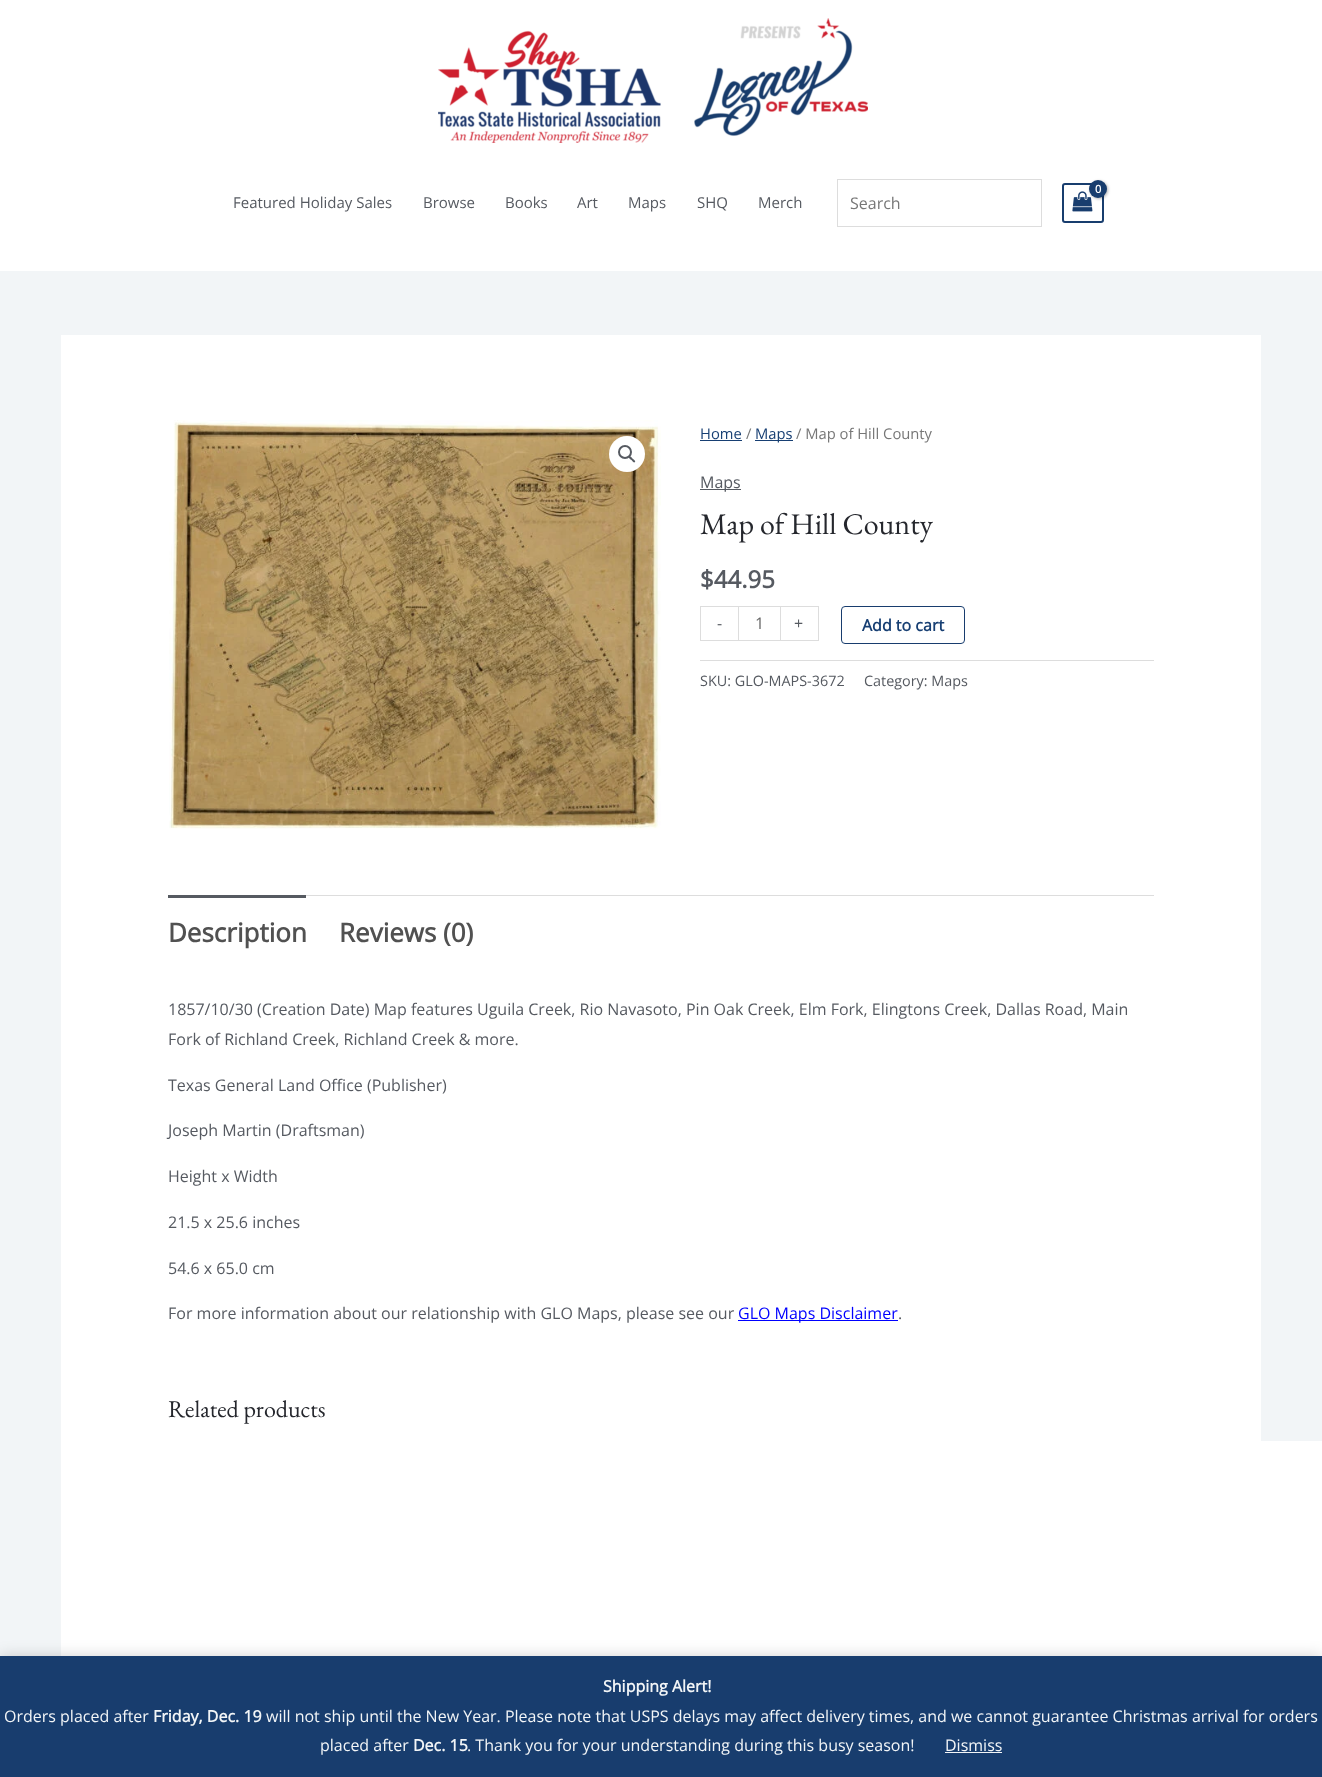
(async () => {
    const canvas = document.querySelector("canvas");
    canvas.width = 1322;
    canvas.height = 1777;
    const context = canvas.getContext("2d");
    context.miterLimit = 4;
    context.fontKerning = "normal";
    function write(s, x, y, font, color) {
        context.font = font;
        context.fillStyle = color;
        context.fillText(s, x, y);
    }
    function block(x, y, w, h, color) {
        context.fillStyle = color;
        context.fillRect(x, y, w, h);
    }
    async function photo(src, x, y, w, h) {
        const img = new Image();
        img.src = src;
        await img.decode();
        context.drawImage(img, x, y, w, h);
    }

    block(0, 0, 1322, 1777, "rgb(242, 245, 247)");
    block(0, 0, 1322, 271, "rgb(255, 255, 255)");
    await photo("media/1.png", 438, 18, 430, 125);
    context.beginPath();
    context.roundRect(1063, 184, 40, 38, 2);
    context.strokeStyle = "rgb(24, 61, 110)";
    context.lineWidth = 2;
    context.stroke();
    await photo("media/2.png", 1072, 191, 21, 21);
    context.fillStyle = "rgba(0, 0, 0, 0.3)";
    context.filter = "blur(1.5px)";
    context.beginPath();
    context.roundRect(1090, 181, 18, 18, 9);
    context.fill();
    context.filter = "none";
    context.fillStyle = "rgb(24, 61, 110)";
    context.beginPath();
    context.arc(1098, 189, 9, 0, Math.PI * 2);
    context.fill();
    write("0", 1095, 193, "bold 11px Open Sans", "rgb(255, 255, 255)");
    write("Featured Holiday Sales", 233, 208, "15px Open Sans", "rgb(86, 90, 97)");
    write("Browse", 423, 208, "15px Open Sans", "rgb(86, 90, 97)");
    write("Books", 505, 208, "15px Open Sans", "rgb(86, 90, 97)");
    write("Art", 577, 208, "15px Open Sans", "rgb(86, 90, 97)");
    write("Maps", 628, 208, "15px Open Sans", "rgb(86, 90, 97)");
    write("SHQ", 697, 208, "15px Open Sans", "rgb(86, 90, 97)");
    write("Merch", 758, 208, "15px Open Sans", "rgb(86, 90, 97)");
    context.strokeStyle = "rgb(221, 221, 221)";
    context.lineWidth = 1;
    context.strokeRect(837.5, 179.5, 204, 47);
    write("Search", 850, 209, "16px Open Sans", "rgb(119, 119, 119)");
    block(61, 335, 1200, 1321, "rgb(255, 255, 255)");
    await photo("media/3.png", 169, 420, 492, 409);
    context.beginPath();
    context.arc(627, 454, 18, 0, Math.PI * 2);
    context.fill();
    context.beginPath();
    context.arc(625, 452, 6, 0, Math.PI * 2);
    context.strokeStyle = "rgb(86, 90, 97)";
    context.lineWidth = 2;
    context.stroke();
    context.fillStyle = "rgb(86, 90, 97)";
    context.beginPath();
    context.moveTo(629, 456.5);
    context.bezierCurveTo(630.5, 455.5, 632, 458, 632.5, 458.5);
    context.bezierCurveTo(633.5, 459.5, 636, 461, 635, 462);
    context.bezierCurveTo(633.5, 463.5, 632, 460.5, 631.5, 460);
    context.bezierCurveTo(630.5, 459.5, 628, 457.5, 629, 456.5);
    context.closePath();
    context.fill();
    write("Home", 700, 439, "14.75px Open Sans", "rgb(23, 63, 115)");
    block(700, 440, 42, 1, "rgb(23, 63, 115)");
    write("/", 746, 439, "14.75px Open Sans", "rgb(119, 119, 119)");
    block(755, 440, 38, 1, "rgb(23, 63, 115)");
    write("Maps", 755, 439, "14.75px Open Sans", "rgb(23, 63, 115)");
    write("/ Map of Hill County", 796, 439, "14.75px Open Sans", "rgb(119, 119, 119)");
    block(700, 489, 41, 1, "rgb(86, 90, 97)");
    write("Maps", 700, 488, "16px Open Sans", "rgb(86, 90, 97)");
    write("Map of Hill County", 700, 534, "30px EB Garamond", "rgb(37, 39, 45)");
    write("$44.95", 700, 588, "bold 24px Open Sans", "rgb(86, 90, 97)");
    block(700, 606, 38, 1, "rgb(221, 221, 221)");
    block(700, 640, 38, 1, "rgb(221, 221, 221)");
    block(700, 606, 1, 35, "rgb(221, 221, 221)");
    write("-", 717, 629, "16px Open Sans", "rgb(86, 90, 97)");
    context.strokeStyle = "rgb(221, 221, 221)";
    context.lineWidth = 1;
    context.strokeRect(738.5, 606.5, 42, 34);
    write("1", 755, 629, "16px Open Sans", "rgb(102, 102, 102)");
    block(781, 606, 38, 1, "rgb(221, 221, 221)");
    block(818, 606, 1, 35, "rgb(221, 221, 221)");
    block(781, 640, 38, 1, "rgb(221, 221, 221)");
    write("+", 794, 629, "16px Open Sans", "rgb(86, 90, 97)");
    context.beginPath();
    context.roundRect(841.5, 606.5, 123, 37, 3.5);
    context.strokeStyle = "rgb(24, 61, 110)";
    context.stroke();
    write("Add to cart", 862, 631, "bold 16px Open Sans", "rgb(23, 63, 115)");
    block(700, 660, 454, 1, "rgb(221, 221, 221)");
    write("SKU: GLO-MAPS-3672", 700, 686, "14.4px Open Sans", "rgb(86, 90, 97)");
    write("Category: Maps", 864, 686, "14.4px Open Sans", "rgb(86, 90, 97)");
    block(306, 895, 848, 1, "rgb(221, 221, 221)");
    block(168, 895, 138, 3, "rgb(86, 90, 97)");
    write("Description", 168, 942, "bold 26px Open Sans", "rgb(81, 81, 81)");
    write("Reviews (0)", 339, 942, "bold 26px Open Sans", "rgb(81, 81, 81)");
    write("1857/10/30 (Creation Date) Map features Uguila Creek, Rio Navasoto, Pin Oak Creek, Elm Fork, Elingtons Creek, Dallas Road, Main", 168, 1015, "16px Open Sans", "rgb(86, 90, 97)");
    write("Fork of Richland Creek, Richland Creek & more.", 168, 1045, "16px Open Sans", "rgb(86, 90, 97)");
    write("Texas General Land Office (Publisher)", 168, 1091, "16px Open Sans", "rgb(86, 90, 97)");
    write("Joseph Martin (Draftsman)", 168, 1136, "16px Open Sans", "rgb(86, 90, 97)");
    write("Height x Width", 168, 1182, "16px Open Sans", "rgb(86, 90, 97)");
    write("21.5 x 25.6 inches", 168, 1228, "16px Open Sans", "rgb(86, 90, 97)");
    write("54.6 x 65.0 cm", 168, 1274, "16px Open Sans", "rgb(86, 90, 97)");
    write("For more information about our relationship with GLO Maps, please see our", 168, 1319, "16px Open Sans", "rgb(86, 90, 97)");
    block(738, 1320, 160, 1, "rgb(0, 0, 255)");
    write("GLO Maps Disclaimer", 738, 1319, "16px Open Sans", "rgb(0, 0, 255)");
    write(".", 898, 1319, "16px Open Sans", "rgb(86, 90, 97)");
    write("Related products", 168, 1417, "24px EB Garamond", "rgb(37, 39, 45)");
    block(1261, 1441, 61, 215, "rgb(255, 255, 255)");
    context.fillStyle = "rgba(0, 0, 0, 0.2)";
    context.filter = "blur(8px)";
    context.beginPath();
    context.rect(0, 1657, 1322, 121);
    context.fill();
    context.filter = "none";
    block(0, 1656, 1322, 121, "rgb(24, 61, 110)");
    write("Shipping Alert!", 603, 1692, "bold 16px Open Sans", "rgb(242, 245, 247)");
    write("Orders placed after", 4, 1722, "16px Open Sans", "rgb(242, 245, 247)");
    write("Friday, Dec. 19", 153, 1722, "bold 16px Open Sans", "rgb(242, 245, 247)");
    write("will not ship until the New Year. Please note that USPS delays may affect delivery times, and we cannot guarantee Christmas arrival for orders", 266, 1722, "16px Open Sans", "rgb(242, 245, 247)");
    write("placed after", 320, 1751, "16px Open Sans", "rgb(242, 245, 247)");
    write("Dec. 15", 413, 1751, "bold 16px Open Sans", "rgb(242, 245, 247)");
    write(". Thank you for your understanding during this busy season!", 467, 1751, "16px Open Sans", "rgb(242, 245, 247)");
    write("Dismiss", 945, 1751, "16px Open Sans", "rgb(242, 245, 247)");
    block(945, 1752, 57, 1, "rgb(242, 245, 247)");
})();
